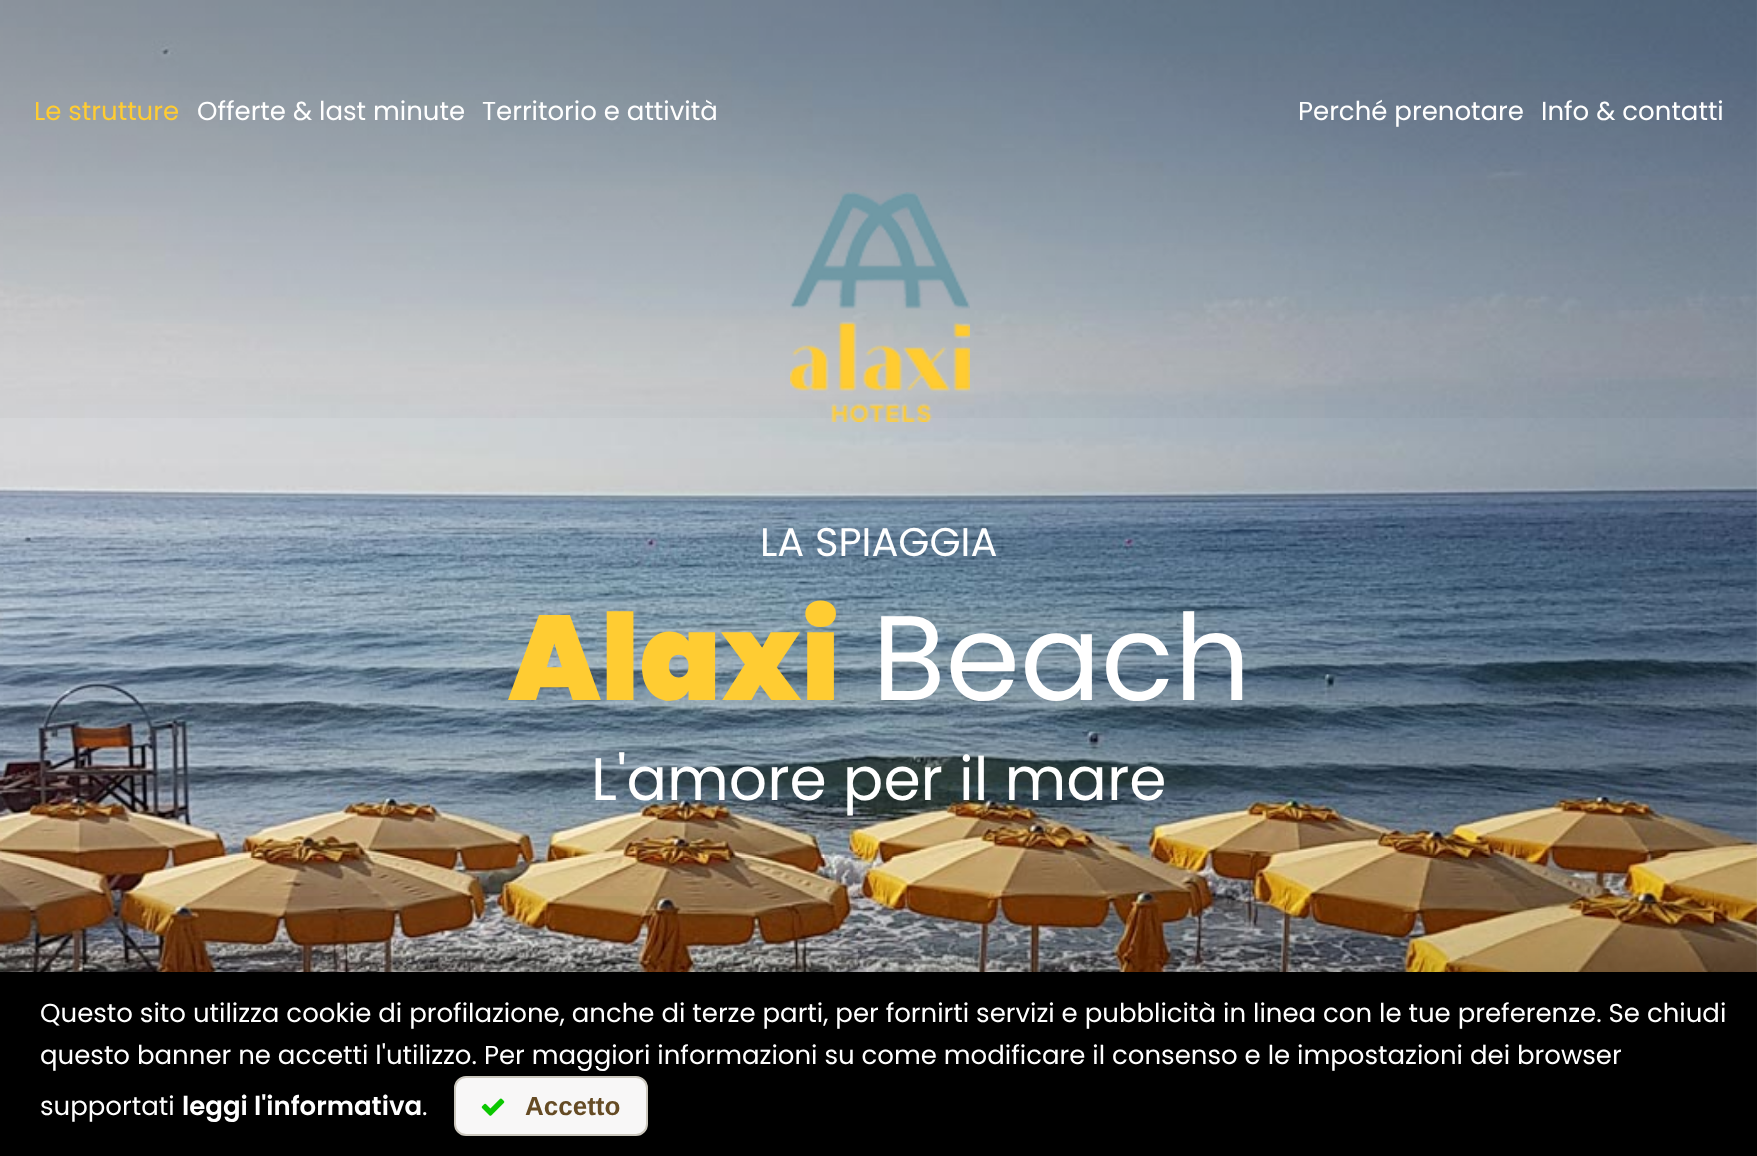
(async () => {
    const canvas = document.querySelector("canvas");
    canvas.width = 1757;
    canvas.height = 1156;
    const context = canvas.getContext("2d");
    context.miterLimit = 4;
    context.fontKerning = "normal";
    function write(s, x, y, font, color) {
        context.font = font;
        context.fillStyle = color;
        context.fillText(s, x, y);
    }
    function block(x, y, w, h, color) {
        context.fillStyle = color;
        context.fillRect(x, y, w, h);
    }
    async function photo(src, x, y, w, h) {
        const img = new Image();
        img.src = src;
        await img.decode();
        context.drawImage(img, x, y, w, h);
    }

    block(0, 0, 1757, 1156, "rgb(255, 255, 255)");
    await photo("media/3.png", 0, 0, 1757, 972);
    await photo("media/2.png", 0, 0, 1757, 418);
    write("Le strutture", 34, 120, "26px Poppins", "rgb(255, 204, 50)");
    write("Offerte & last minute", 197, 120, "26px Poppins", "rgb(255, 255, 255)");
    write("Territorio e attività", 482, 120, "26px Poppins", "rgb(255, 255, 255)");
    write("Perché prenotare", 1298, 120, "26px Poppins", "rgb(255, 255, 255)");
    write("Info & contatti", 1541, 120, "26px Poppins", "rgb(255, 255, 255)");
    await photo("media/1.png", 790, 192, 180, 230);
    write("LA SPIAGGIA", 760, 556, "40px Poppins", "rgb(255, 255, 255)");
    write("Alaxi", 508, 700, "900 120px Poppins", "rgb(255, 204, 50)");
    write("Beach", 872, 700, "120px Poppins", "rgb(255, 255, 255)");
    write("L'amore per il mare", 591, 800, "60px Poppins", "rgb(255, 255, 255)");
    await photo("media/4.png", 0, 896, 1757, 76);
    block(0, 972, 1757, 184, "rgb(0, 0, 0)");
    write("Questo sito utilizza cookie di profilazione, anche di terze parti, per fornirti servizi e pubblicità in linea con le tue preferenze. Se chiudi", 40, 1022, "26px Poppins", "rgb(255, 255, 255)");
    write("questo banner ne accetti l'utilizzo. Per maggiori informazioni su come modificare il consenso e le impostazioni dei browser", 40, 1064, "26px Poppins", "rgb(255, 255, 255)");
    write("supportati", 40, 1115, "26px Poppins", "rgb(255, 255, 255)");
    write("leggi l'informativa", 182, 1115, "600 26px Poppins", "rgb(255, 255, 255)");
    write(".", 422, 1115, "26px Poppins", "rgb(255, 255, 255)");
    context.fillStyle = "rgb(248, 247, 247)";
    context.beginPath();
    context.roundRect(455, 1077, 192, 58, 11);
    context.fill();
    context.strokeStyle = "rgb(203, 199, 189)";
    context.lineWidth = 2;
    context.stroke();
    await photo("media/5.png", 481, 1098, 24, 18);
    write("Accetto", 525, 1115, "bold 26px Liberation Sans", "rgb(101, 75, 36)");
})();
